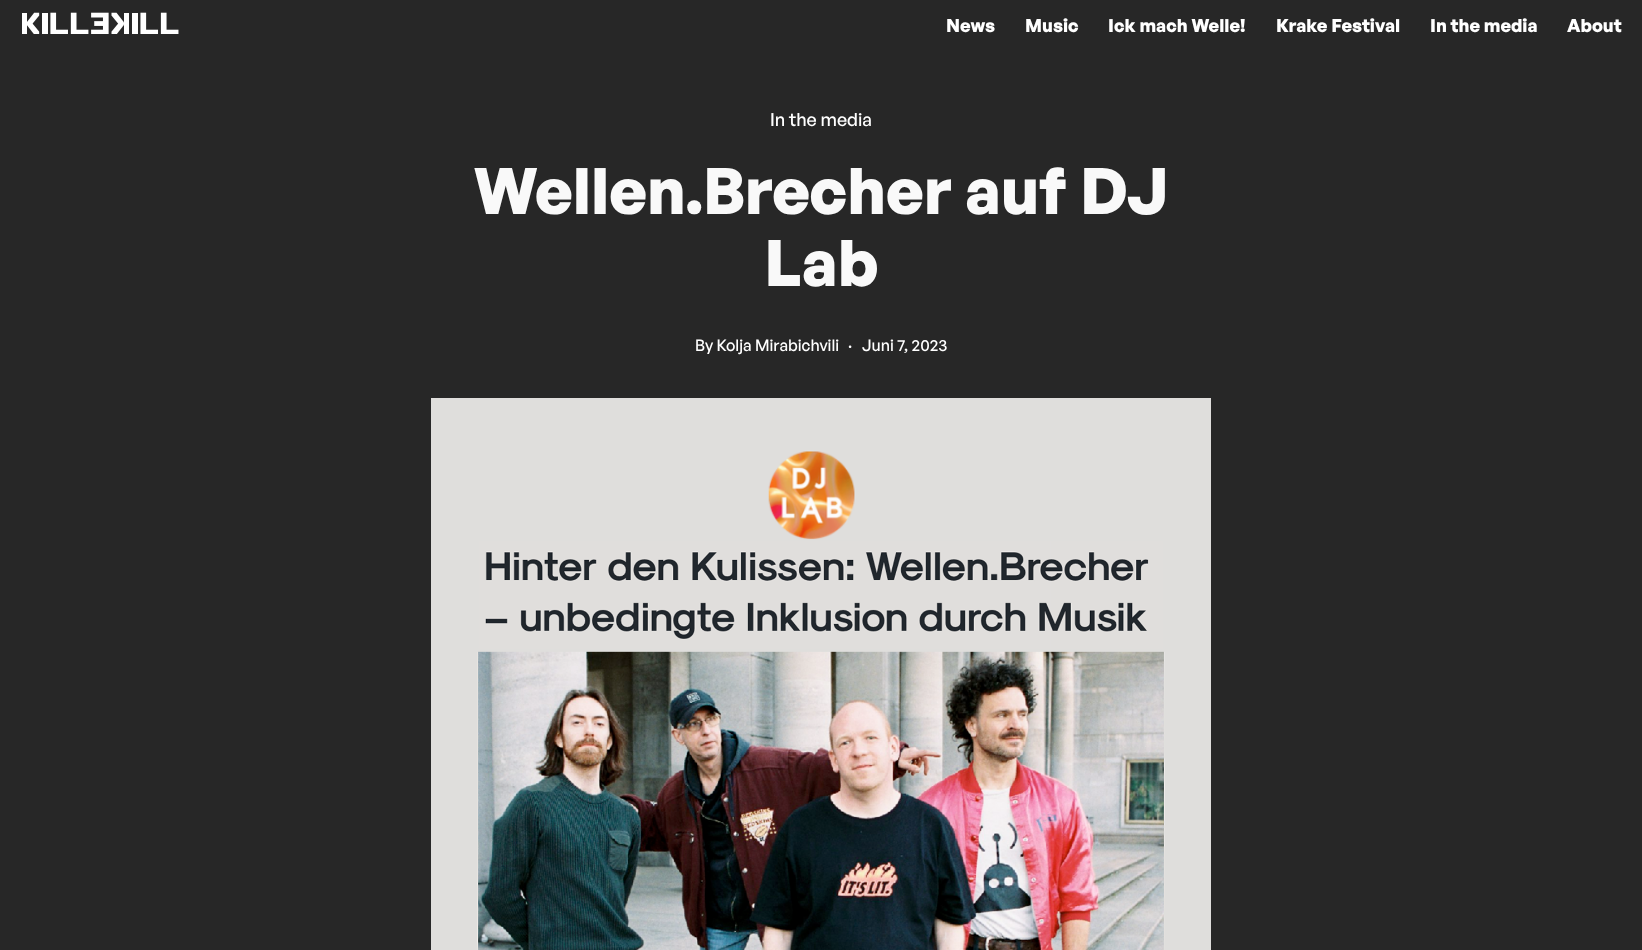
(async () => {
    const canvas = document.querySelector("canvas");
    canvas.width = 1642;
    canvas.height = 950;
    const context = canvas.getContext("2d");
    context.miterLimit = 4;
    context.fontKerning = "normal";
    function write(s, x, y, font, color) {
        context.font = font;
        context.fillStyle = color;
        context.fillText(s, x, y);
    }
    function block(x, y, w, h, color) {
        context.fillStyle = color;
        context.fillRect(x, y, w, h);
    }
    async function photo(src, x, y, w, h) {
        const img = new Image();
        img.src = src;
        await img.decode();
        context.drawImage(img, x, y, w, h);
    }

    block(0, 0, 1642, 950, "rgb(39, 39, 39)");
    await photo("media/1.png", 22, 12, 157, 22);
    write("News", 946, 32, "bold 18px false", "rgb(255, 255, 255)");
    write("Music", 1025, 32, "bold 18px false", "rgb(255, 255, 255)");
    write("Ick mach Welle!", 1108, 32, "bold 18px false", "rgb(255, 255, 255)");
    write("Krake Festival", 1276, 32, "bold 18px false", "rgb(255, 255, 255)");
    write("In the media", 1430, 32, "bold 18px false", "rgb(255, 255, 255)");
    write("About", 1567, 32, "bold 18px false", "rgb(255, 255, 255)");
    write("In the media", 770, 126, "500 18px General Sans", "rgb(255, 255, 255)");
    write("Wellen.Brecher auf DJ", 474, 214, "bold 64px false", "rgb(249, 249, 249)");
    write("Lab", 764, 286, "bold 64px false", "rgb(249, 249, 249)");
    write("By Kolja Mirabichvili", 695, 351, "500 16px General Sans", "rgb(255, 255, 255)");
    write("·", 848, 351, "500 16px General Sans", "rgb(255, 255, 255)");
    write("Juni 7, 2023", 862, 351, "500 16px General Sans", "rgb(255, 255, 255)");
    await photo("media/2.png", 431, 398, 780, 552);
})();
